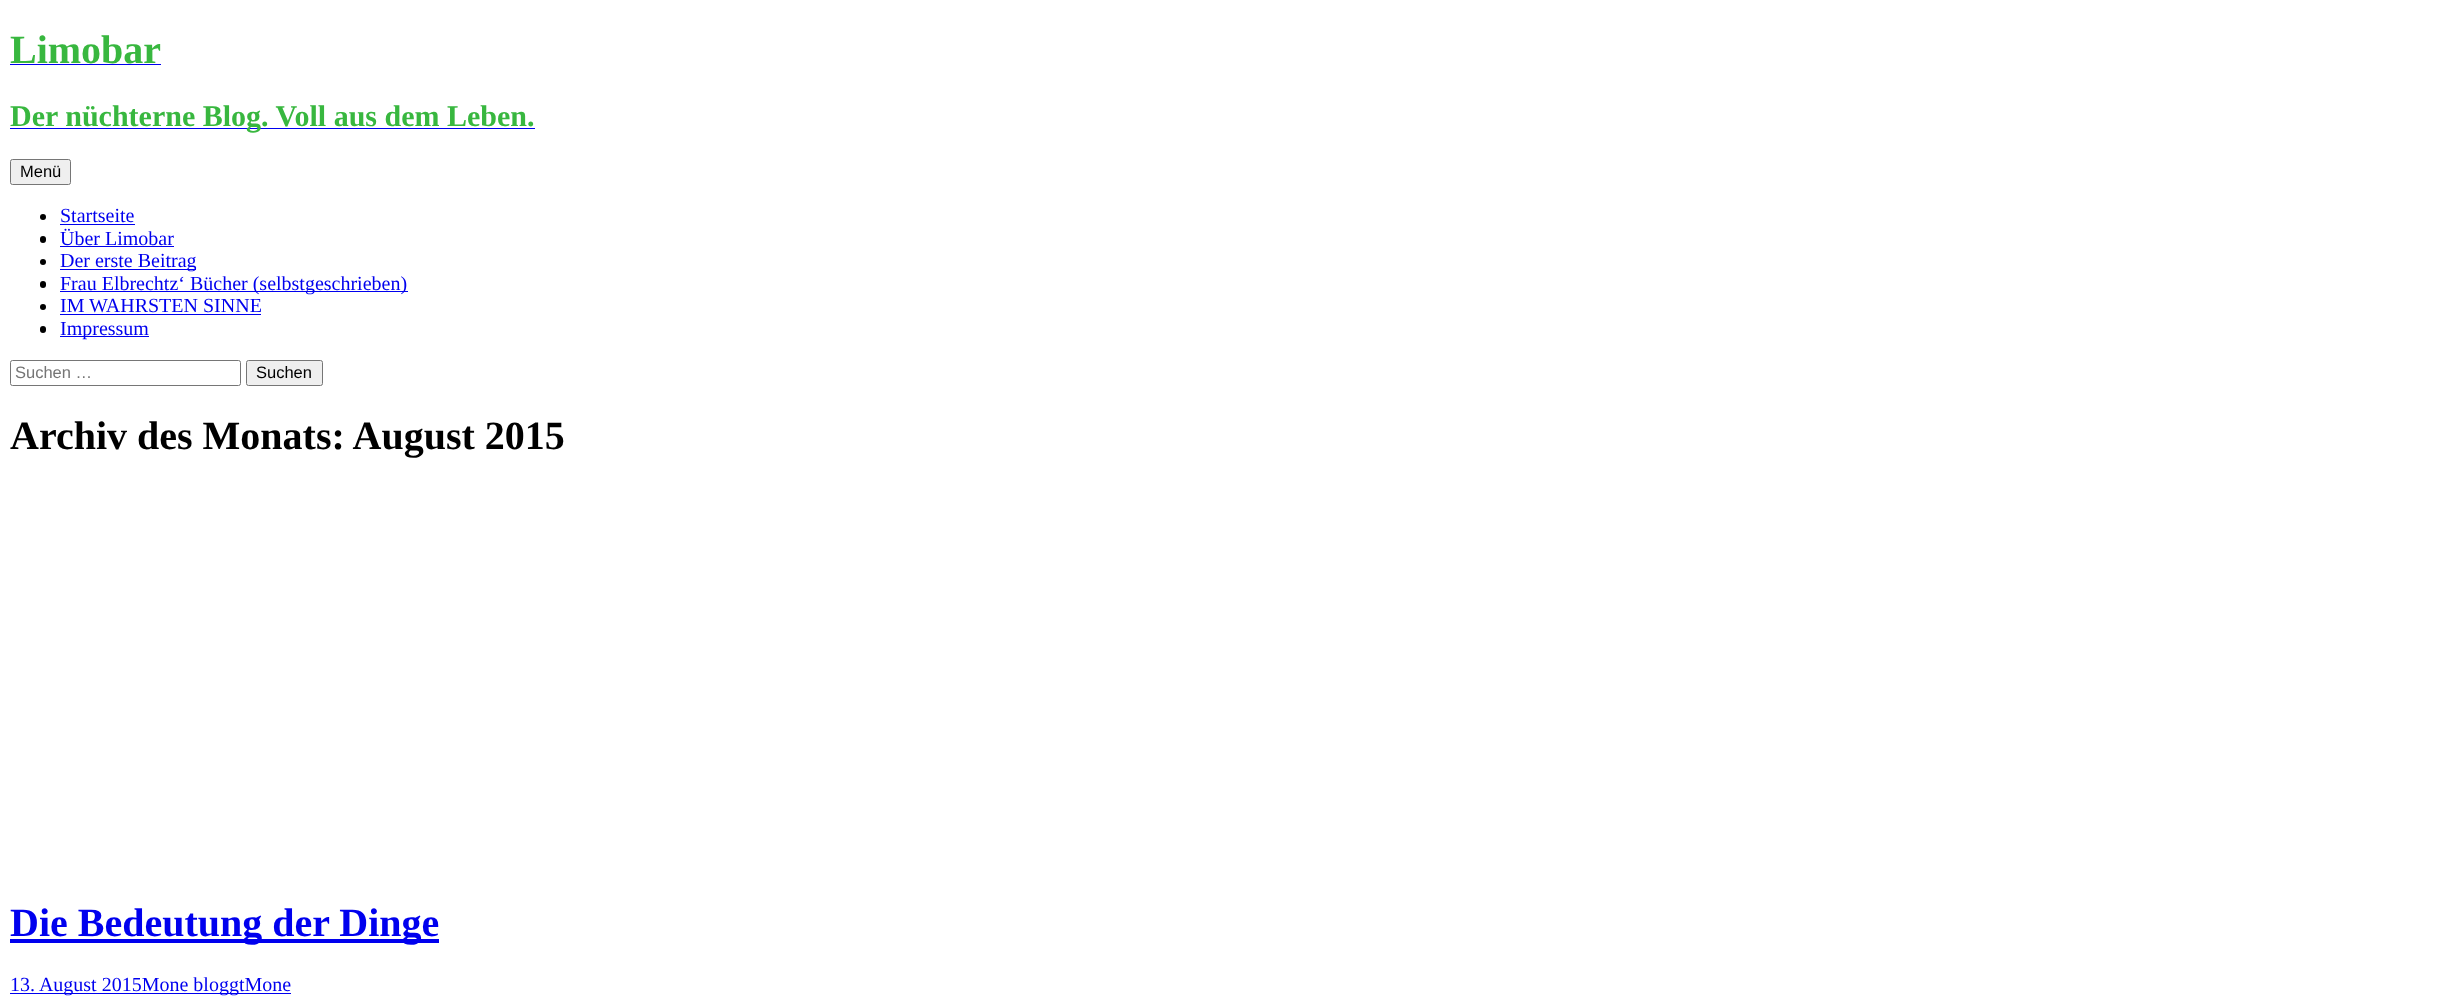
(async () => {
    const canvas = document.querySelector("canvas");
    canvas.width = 2456;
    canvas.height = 1004;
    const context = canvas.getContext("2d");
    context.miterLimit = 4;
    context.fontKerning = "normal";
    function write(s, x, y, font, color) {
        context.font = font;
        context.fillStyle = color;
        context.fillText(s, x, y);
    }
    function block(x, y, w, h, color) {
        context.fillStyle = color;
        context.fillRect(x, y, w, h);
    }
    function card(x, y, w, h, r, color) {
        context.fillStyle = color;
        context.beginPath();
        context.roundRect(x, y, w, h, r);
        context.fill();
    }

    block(0, 0, 2456, 1004, "rgb(255, 255, 255)");
    write("Limobar", 10, 63, "bold 40px Liberation Serif", "rgb(56, 183, 63)");
    block(10, 64, 151, 1, "rgb(0, 0, 238)");
    block(10, 128, 525, 1, "rgb(0, 0, 238)");
    write("Der nüchterne Blog. Voll aus dem Leben.", 10, 126, "bold 30px Liberation Serif", "rgb(56, 183, 63)");
    context.fillStyle = "rgb(239, 239, 239)";
    context.beginPath();
    context.roundRect(10.5, 159.5, 60, 25, 2);
    context.fill();
    context.strokeStyle = "rgb(118, 118, 118)";
    context.stroke();
    write("Menü", 20, 177, "16.5px Liberation Sans", "rgb(0, 0, 0)");
    context.beginPath();
    context.arc(43, 217, 3, 0, Math.PI * 2);
    context.fill();
    write("Startseite", 60, 222, "20px Liberation Serif", "rgb(0, 0, 238)");
    block(60, 224, 75, 1, "rgb(0, 0, 238)");
    card(40, 236, 6, 7, 3, "rgb(0, 0, 0)");
    write("Über Limobar", 60, 245, "20px Liberation Serif", "rgb(0, 0, 238)");
    block(60, 246, 114, 1, "rgb(0, 0, 238)");
    context.fillStyle = "rgb(0, 0, 0)";
    context.beginPath();
    context.arc(43, 262, 3, 0, Math.PI * 2);
    context.fill();
    block(60, 269, 136, 1, "rgb(0, 0, 238)");
    write("Der erste Beitrag", 60, 267, "20px Liberation Serif", "rgb(0, 0, 238)");
    card(40, 281, 6, 7, 3, "rgb(0, 0, 0)");
    block(60, 291, 348, 1, "rgb(0, 0, 238)");
    write("Frau Elbrechtz‘ Bücher (selbstgeschrieben)", 60, 290, "20px Liberation Serif", "rgb(0, 0, 238)");
    context.fillStyle = "rgb(0, 0, 0)";
    context.beginPath();
    context.arc(43, 307, 3, 0, Math.PI * 2);
    context.fill();
    write("IM WAHRSTEN SINNE", 60, 312, "20px Liberation Serif", "rgb(0, 0, 238)");
    block(60, 314, 201, 1, "rgb(0, 0, 238)");
    card(40, 326, 6, 7, 3, "rgb(0, 0, 0)");
    block(60, 336, 89, 1, "rgb(0, 0, 238)");
    write("Impressum", 60, 335, "20px Liberation Serif", "rgb(0, 0, 238)");
    context.beginPath();
    context.roundRect(10.5, 360.5, 230, 25, 2);
    context.stroke();
    write("Suchen …", 15, 378, "16.5px Liberation Sans", "rgb(117, 117, 117)");
    context.fillStyle = "rgb(239, 239, 239)";
    context.beginPath();
    context.roundRect(246.5, 360.5, 76, 25, 2);
    context.fill();
    context.stroke();
    write("Suchen", 256, 378, "16.5px Liberation Sans", "rgb(0, 0, 0)");
    write("Archiv des Monats: August 2015", 10, 449, "bold 40px Liberation Serif", "rgb(0, 0, 0)");
    block(10, 939, 429, 4, "rgb(0, 0, 238)");
    write("Die Bedeutung der Dinge", 10, 936, "bold 40px Liberation Serif", "rgb(0, 0, 238)");
    block(10, 993, 281, 1, "rgb(0, 0, 238)");
    write("13. August 2015Mone bloggtMone", 10, 991, "20px Liberation Serif", "rgb(0, 0, 238)");
})();
